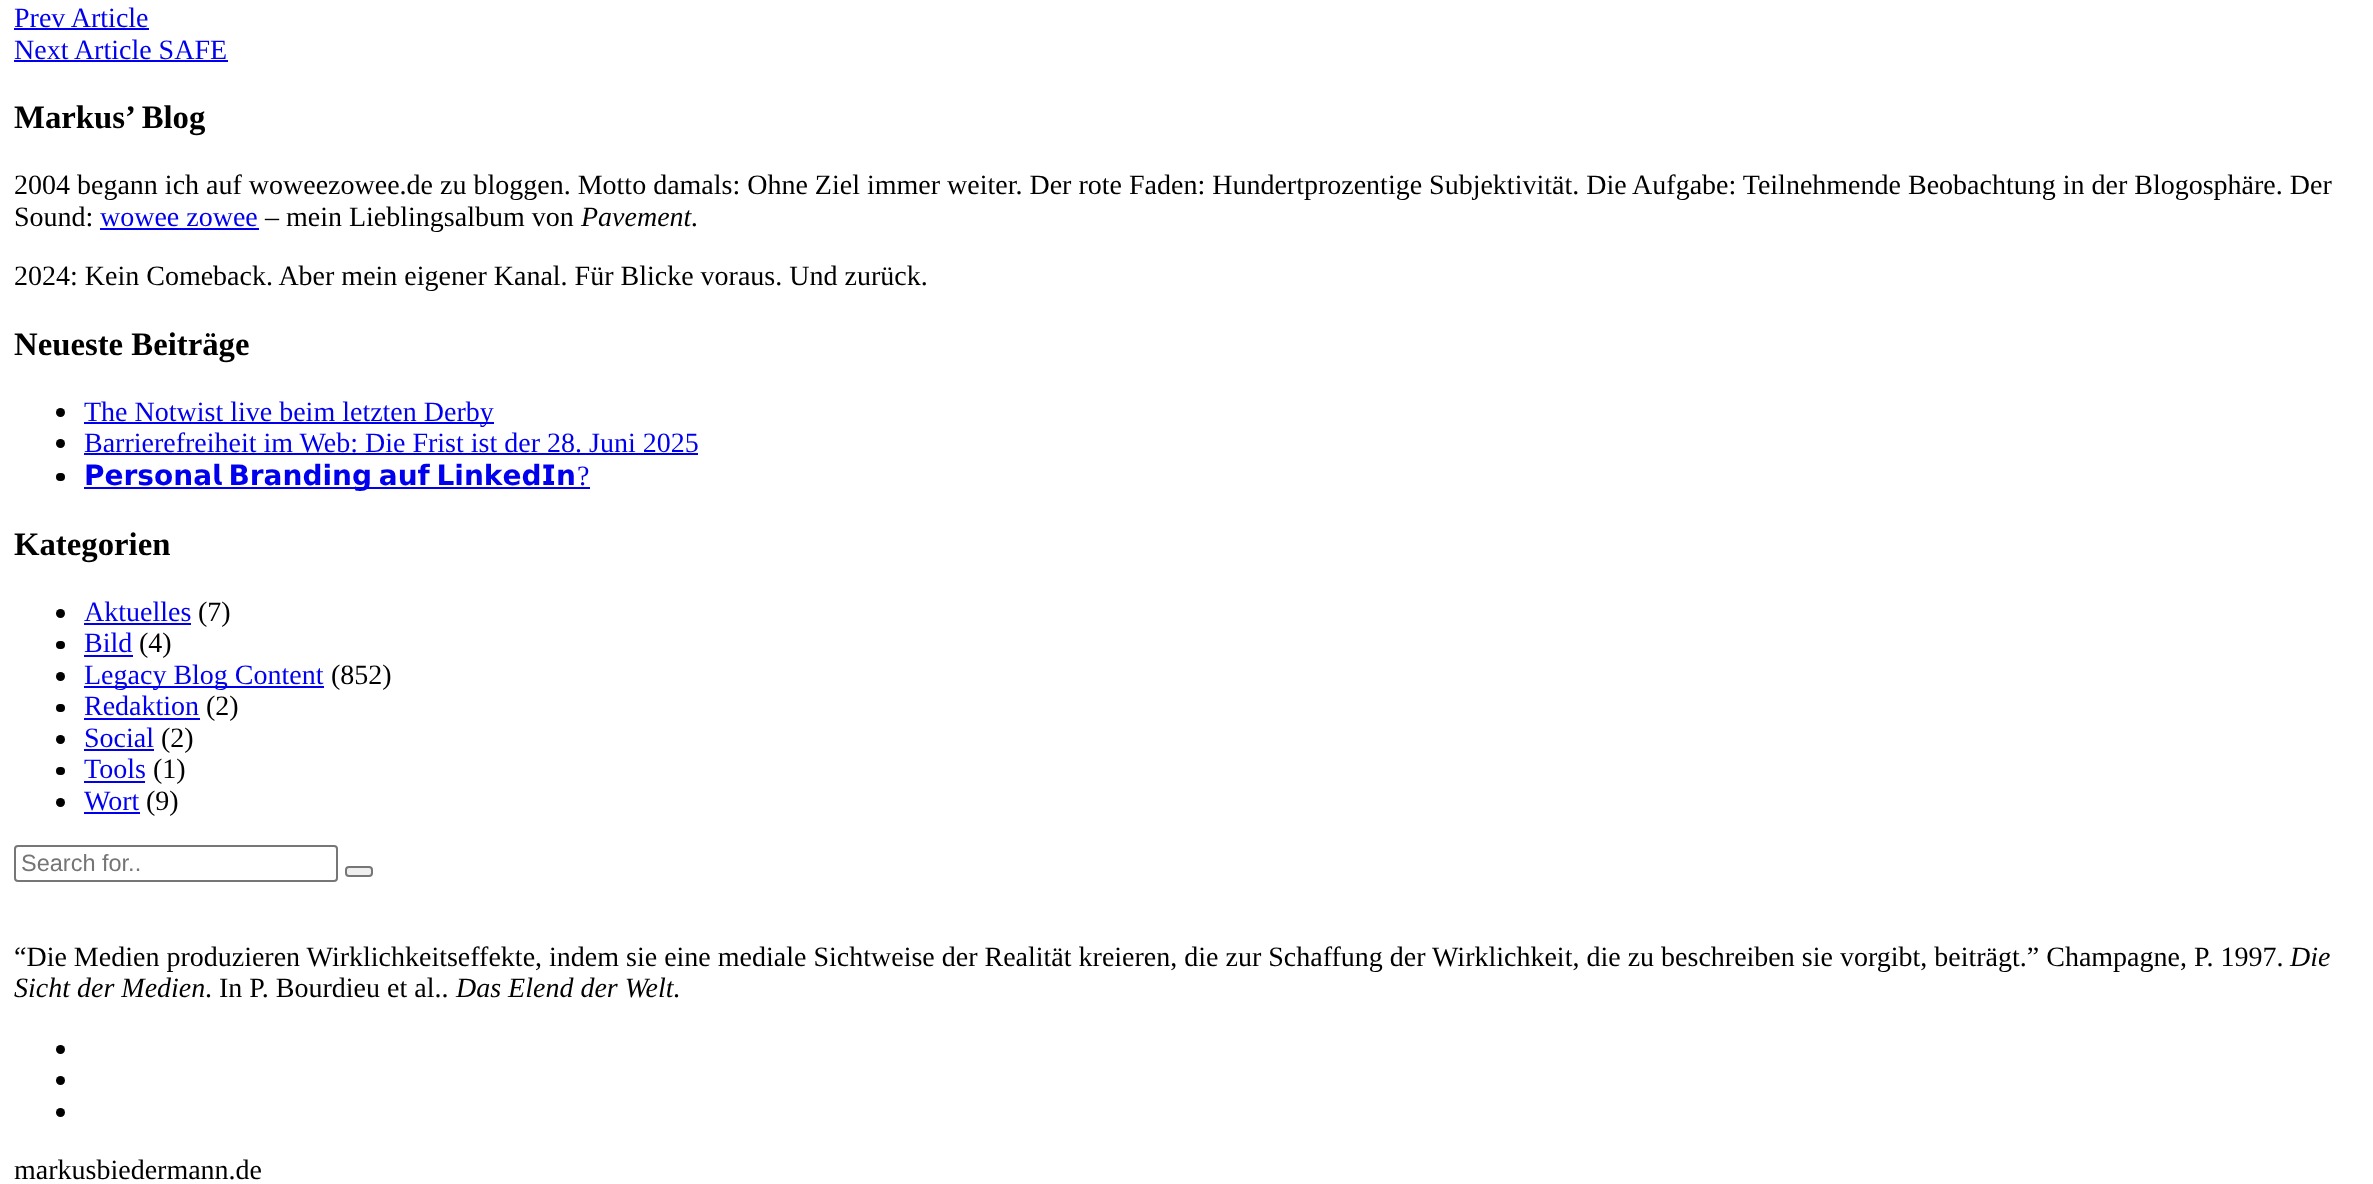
(async () => {
    const canvas = document.querySelector("canvas");
    canvas.width = 2373;
    canvas.height = 1184;
    const context = canvas.getContext("2d");
    context.miterLimit = 4;
    context.fontKerning = "normal";
    function write(s, x, y, font, color) {
        context.font = font;
        context.fillStyle = color;
        context.fillText(s, x, y);
    }
    function block(x, y, w, h, color) {
        context.fillStyle = color;
        context.fillRect(x, y, w, h);
    }
    function card(x, y, w, h, r, color) {
        context.fillStyle = color;
        context.beginPath();
        context.roundRect(x, y, w, h, r);
        context.fill();
    }

    block(0, 0, 2373, 1184, "rgb(255, 255, 255)");
    write("Prev Article", 14, 27, "28px Liberation Serif", "rgb(0, 0, 238)");
    block(14, 28, 135, 2, "rgb(0, 0, 238)");
    write("Next Article SAFE", 14, 59, "28px Liberation Serif", "rgb(0, 0, 238)");
    block(14, 60, 214, 2, "rgb(0, 0, 238)");
    write("Markus’ Blog", 14, 128, "bold 32.75px Liberation Serif", "rgb(0, 0, 0)");
    write("2004 begann ich auf woweezowee.de zu bloggen. Motto damals: Ohne Ziel immer weiter. Der rote Faden: Hundertprozentige Subjektivität. Die Aufgabe: Teilnehmende Beobachtung in der Blogosphäre. Der", 14, 194, "28px Liberation Serif", "rgb(0, 0, 0)");
    write("Sound:", 14, 226, "28px Liberation Serif", "rgb(0, 0, 0)");
    write("wowee zowee", 100, 226, "28px Liberation Serif", "rgb(0, 0, 238)");
    block(100, 228, 159, 2, "rgb(0, 0, 238)");
    write("– mein Lieblingsalbum von", 265, 226, "28px Liberation Serif", "rgb(0, 0, 0)");
    write("Pavement.", 581, 226, "italic 28px Liberation Serif", "rgb(0, 0, 0)");
    write("2024: Kein Comeback. Aber mein eigener Kanal. Für Blicke voraus. Und zurück.", 14, 285, "28px Liberation Serif", "rgb(0, 0, 0)");
    write("Neueste Beiträge", 14, 355, "bold 32.75px Liberation Serif", "rgb(0, 0, 0)");
    context.beginPath();
    context.arc(60.5, 412.5, 4.5, 0, Math.PI * 2);
    context.fill();
    block(84, 422, 410, 2, "rgb(0, 0, 238)");
    write("The Notwist live beim letzten Derby", 84, 421, "28px Liberation Serif", "rgb(0, 0, 238)");
    context.fillStyle = "rgb(0, 0, 0)";
    context.beginPath();
    context.arc(60.5, 443.5, 4.5, 0, Math.PI * 2);
    context.fill();
    write("Barrierefreiheit im Web: Die Frist ist der 28. Juni 2025", 84, 452, "28px Liberation Serif", "rgb(0, 0, 238)");
    block(84, 453, 614, 2, "rgb(0, 0, 238)");
    card(56, 473, 9, 8, 4, "rgb(0, 0, 0)");
    block(84, 487, 506, 2, "rgb(0, 0, 238)");
    context.wordSpacing = "-3px";
    write("𝗣𝗲𝗿𝘀𝗼𝗻𝗮𝗹 𝗕𝗿𝗮𝗻𝗱𝗶𝗻𝗴 𝗮𝘂𝗳 𝗟𝗶𝗻𝗸𝗲𝗱𝗜𝗻", 84, 485, "bold 28px DejaVu Sans", "rgb(0, 0, 238)");
    context.wordSpacing = "0px";
    write("?", 577, 485, "28px Liberation Serif", "rgb(0, 0, 238)");
    write("Kategorien", 14, 555, "bold 32.75px Liberation Serif", "rgb(0, 0, 0)");
    context.beginPath();
    context.arc(60.5, 613.5, 4.5, 0, Math.PI * 2);
    context.fill();
    write("Aktuelles", 84, 621, "28px Liberation Serif", "rgb(0, 0, 238)");
    block(84, 623, 107, 2, "rgb(0, 0, 238)");
    write("(7)", 198, 621, "28px Liberation Serif", "rgb(0, 0, 0)");
    card(56, 641, 9, 8, 4, "rgb(0, 0, 0)");
    write("Bild", 84, 652, "28px Liberation Serif", "rgb(0, 0, 238)");
    block(84, 655, 49, 2, "rgb(0, 0, 238)");
    write("(4)", 139, 652, "28px Liberation Serif", "rgb(0, 0, 0)");
    context.beginPath();
    context.arc(60.5, 676.5, 4.5, 0, Math.PI * 2);
    context.fill();
    block(84, 686, 240, 2, "rgb(0, 0, 238)");
    write("Legacy Blog Content", 84, 684, "28px Liberation Serif", "rgb(0, 0, 238)");
    write("(852)", 331, 684, "28px Liberation Serif", "rgb(0, 0, 0)");
    card(56, 704, 9, 8, 4, "rgb(0, 0, 0)");
    write("Redaktion", 84, 715, "28px Liberation Serif", "rgb(0, 0, 238)");
    block(84, 718, 116, 2, "rgb(0, 0, 238)");
    write("(2)", 206, 715, "28px Liberation Serif", "rgb(0, 0, 0)");
    context.beginPath();
    context.arc(60.5, 739.5, 4.5, 0, Math.PI * 2);
    context.fill();
    write("Social", 84, 747, "28px Liberation Serif", "rgb(0, 0, 238)");
    block(84, 749, 70, 2, "rgb(0, 0, 238)");
    write("(2)", 161, 747, "28px Liberation Serif", "rgb(0, 0, 0)");
    card(56, 767, 9, 8, 4, "rgb(0, 0, 0)");
    write("Tools", 84, 778, "28px Liberation Serif", "rgb(0, 0, 238)");
    block(84, 781, 61, 2, "rgb(0, 0, 238)");
    write("(1)", 153, 778, "28px Liberation Serif", "rgb(0, 0, 0)");
    context.beginPath();
    context.arc(60.5, 802.5, 4.5, 0, Math.PI * 2);
    context.fill();
    write("Wort", 84, 810, "28px Liberation Serif", "rgb(0, 0, 238)");
    block(84, 812, 56, 2, "rgb(0, 0, 238)");
    write("(9)", 146, 810, "28px Liberation Serif", "rgb(0, 0, 0)");
    context.beginPath();
    context.roundRect(15, 846, 322, 35, 3);
    context.strokeStyle = "rgb(118, 118, 118)";
    context.lineWidth = 2;
    context.stroke();
    write("Search for..", 21, 871, "23.5px Liberation Sans", "rgb(117, 117, 117)");
    context.fillStyle = "rgb(239, 239, 239)";
    context.beginPath();
    context.roundRect(346, 867, 26, 9, 3);
    context.fill();
    context.stroke();
    write("“Die Medien produzieren Wirklichkeitseffekte, indem sie eine mediale Sichtweise der Realität kreieren, die zur Schaffung der Wirklichkeit, die zu beschreiben sie vorgibt, beiträgt.” Champagne, P. 1997.", 14, 966, "28px Liberation Serif", "rgb(0, 0, 0)");
    write("Die", 2290, 966, "italic 28px Liberation Serif", "rgb(0, 0, 0)");
    write("Sicht der Medien", 14, 997, "italic 28px Liberation Serif", "rgb(0, 0, 0)");
    write(". In P. Bourdieu et al..", 205, 997, "28px Liberation Serif", "rgb(0, 0, 0)");
    write("Das Elend der Welt", 456, 997, "italic 28px Liberation Serif", "rgb(0, 0, 0)");
    write(".", 673, 997, "28px Liberation Serif", "rgb(0, 0, 0)");
    context.beginPath();
    context.arc(60.5, 1049.5, 4.5, 0, Math.PI * 2);
    context.fill();
    context.beginPath();
    context.arc(60.5, 1080.5, 4.5, 0, Math.PI * 2);
    context.fill();
    context.beginPath();
    context.arc(60.5, 1112.5, 4.5, 0, Math.PI * 2);
    context.fill();
    write("markusbiedermann.de", 14, 1179, "28px Liberation Serif", "rgb(0, 0, 0)");
})();
